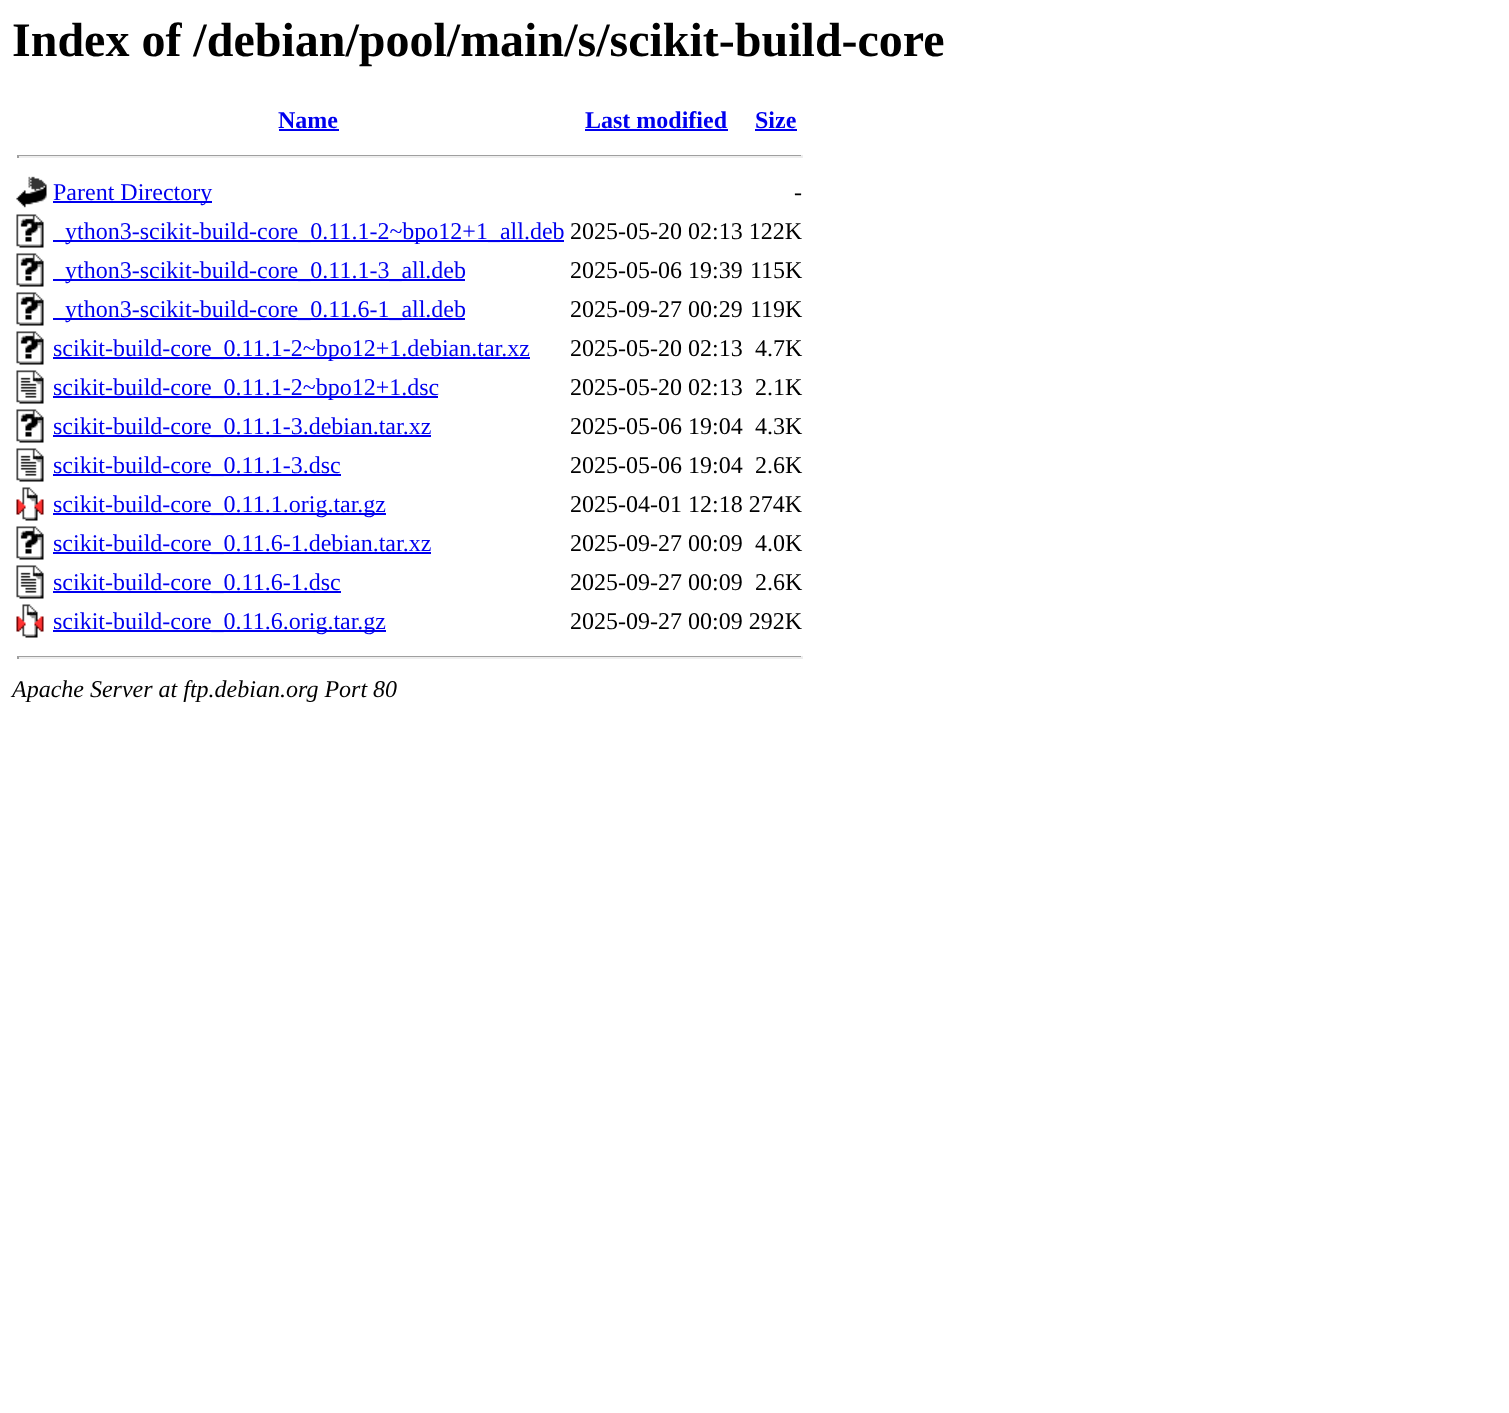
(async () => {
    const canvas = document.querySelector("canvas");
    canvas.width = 1509;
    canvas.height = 1413;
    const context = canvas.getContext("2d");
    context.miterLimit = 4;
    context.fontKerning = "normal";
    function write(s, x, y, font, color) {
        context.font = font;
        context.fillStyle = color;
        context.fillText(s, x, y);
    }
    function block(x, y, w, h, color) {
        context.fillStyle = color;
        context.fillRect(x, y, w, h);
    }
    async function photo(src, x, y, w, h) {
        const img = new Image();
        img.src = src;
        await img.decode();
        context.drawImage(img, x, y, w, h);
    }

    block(0, 0, 1509, 1413, "rgb(255, 255, 255)");
    write("Index of /debian/pool/main/s/scikit-build-core", 12, 56, "bold 48px Liberation Serif", "rgb(0, 0, 0)");
    write("Name", 278, 128, "bold 24px Liberation Serif", "rgb(0, 0, 238)");
    block(279, 129, 60, 2, "rgb(0, 0, 238)");
    write("Last modified", 585, 128, "bold 24px Liberation Serif", "rgb(0, 0, 238)");
    block(585, 129, 143, 2, "rgb(0, 0, 238)");
    write("Size", 755, 128, "bold 24px Liberation Serif", "rgb(0, 0, 238)");
    block(755, 129, 42, 2, "rgb(0, 0, 238)");
    block(17, 155, 786, 1, "rgb(159, 159, 159)");
    block(801, 155, 2, 3, "rgb(238, 238, 238)");
    block(17, 156, 786, 2, "rgb(238, 238, 238)");
    block(17, 155, 2, 3, "rgb(159, 159, 159)");
    await photo("media/1.png", 16, 176, 31, 32);
    block(53, 201, 159, 2, "rgb(0, 0, 238)");
    write("Parent Directory", 53, 200, "24px Liberation Serif", "rgb(0, 0, 238)");
    write("-", 794, 200, "24px Liberation Serif", "rgb(0, 0, 0)");
    await photo("media/2.png", 16, 214, 28, 34);
    block(53, 240, 511, 2, "rgb(0, 0, 238)");
    write("ython3-scikit-build-core_0.11.1-2~bpo12+1_all.deb", 65, 239, "24px Liberation Serif", "rgb(0, 0, 238)");
    write("2025-05-20 02:13 122K", 570, 239, "24px Liberation Serif", "rgb(0, 0, 0)");
    await photo("media/2.png", 16, 253, 28, 34);
    block(53, 279, 412, 2, "rgb(0, 0, 238)");
    write("ython3-scikit-build-core_0.11.1-3_all.deb", 65, 278, "24px Liberation Serif", "rgb(0, 0, 238)");
    write("2025-05-06 19:39", 570, 278, "24px Liberation Serif", "rgb(0, 0, 0)");
    write("115K", 750, 278, "24px Liberation Serif", "rgb(0, 0, 0)");
    await photo("media/2.png", 16, 292, 28, 34);
    block(53, 318, 412, 2, "rgb(0, 0, 238)");
    write("ython3-scikit-build-core_0.11.6-1_all.deb", 65, 317, "24px Liberation Serif", "rgb(0, 0, 238)");
    write("2025-09-27 00:29", 570, 317, "24px Liberation Serif", "rgb(0, 0, 0)");
    write("119K", 750, 317, "24px Liberation Serif", "rgb(0, 0, 0)");
    await photo("media/2.png", 16, 331, 28, 34);
    block(53, 357, 477, 2, "rgb(0, 0, 238)");
    write("scikit-build-core_0.11.1-2~bpo12+1.debian.tar.xz", 53, 356, "24px Liberation Serif", "rgb(0, 0, 238)");
    write("2025-05-20 02:13", 570, 356, "24px Liberation Serif", "rgb(0, 0, 0)");
    write("4.7K", 755, 356, "24px Liberation Serif", "rgb(0, 0, 0)");
    await photo("media/3.png", 16, 370, 28, 34);
    block(53, 396, 385, 2, "rgb(0, 0, 238)");
    write("scikit-build-core_0.11.1-2~bpo12+1.dsc", 53, 395, "24px Liberation Serif", "rgb(0, 0, 238)");
    write("2025-05-20 02:13", 570, 395, "24px Liberation Serif", "rgb(0, 0, 0)");
    write("2.1K", 755, 395, "24px Liberation Serif", "rgb(0, 0, 0)");
    await photo("media/2.png", 16, 409, 28, 34);
    block(53, 435, 378, 2, "rgb(0, 0, 238)");
    write("scikit-build-core_0.11.1-3.debian.tar.xz", 53, 434, "24px Liberation Serif", "rgb(0, 0, 238)");
    write("2025-05-06 19:04", 570, 434, "24px Liberation Serif", "rgb(0, 0, 0)");
    write("4.3K", 755, 434, "24px Liberation Serif", "rgb(0, 0, 0)");
    await photo("media/3.png", 16, 448, 28, 34);
    block(53, 474, 288, 2, "rgb(0, 0, 238)");
    write("scikit-build-core_0.11.1-3.dsc", 53, 473, "24px Liberation Serif", "rgb(0, 0, 238)");
    write("2025-05-06 19:04", 570, 473, "24px Liberation Serif", "rgb(0, 0, 0)");
    write("2.6K", 755, 473, "24px Liberation Serif", "rgb(0, 0, 0)");
    await photo("media/4.png", 16, 487, 28, 34);
    block(53, 513, 333, 2, "rgb(0, 0, 238)");
    write("scikit-build-core_0.11.1.orig.tar.gz", 53, 512, "24px Liberation Serif", "rgb(0, 0, 238)");
    write("2025-04-01 12:18 274K", 570, 512, "24px Liberation Serif", "rgb(0, 0, 0)");
    await photo("media/2.png", 16, 526, 28, 34);
    block(53, 552, 378, 2, "rgb(0, 0, 238)");
    write("scikit-build-core_0.11.6-1.debian.tar.xz", 53, 551, "24px Liberation Serif", "rgb(0, 0, 238)");
    write("2025-09-27 00:09", 570, 551, "24px Liberation Serif", "rgb(0, 0, 0)");
    write("4.0K", 755, 551, "24px Liberation Serif", "rgb(0, 0, 0)");
    await photo("media/3.png", 16, 565, 28, 34);
    block(53, 591, 288, 2, "rgb(0, 0, 238)");
    write("scikit-build-core_0.11.6-1.dsc", 53, 590, "24px Liberation Serif", "rgb(0, 0, 238)");
    write("2025-09-27 00:09", 570, 590, "24px Liberation Serif", "rgb(0, 0, 0)");
    write("2.6K", 755, 590, "24px Liberation Serif", "rgb(0, 0, 0)");
    await photo("media/4.png", 16, 604, 28, 34);
    block(53, 630, 333, 2, "rgb(0, 0, 238)");
    write("scikit-build-core_0.11.6.orig.tar.gz", 53, 629, "24px Liberation Serif", "rgb(0, 0, 238)");
    write("2025-09-27 00:09 292K", 570, 629, "24px Liberation Serif", "rgb(0, 0, 0)");
    block(17, 656, 786, 1, "rgb(159, 159, 159)");
    block(801, 656, 2, 3, "rgb(238, 238, 238)");
    block(17, 657, 786, 2, "rgb(238, 238, 238)");
    block(17, 656, 2, 3, "rgb(159, 159, 159)");
    write("Apache Server at ftp.debian.org Port 80", 12, 697, "italic 24px Liberation Serif", "rgb(0, 0, 0)");
})();
